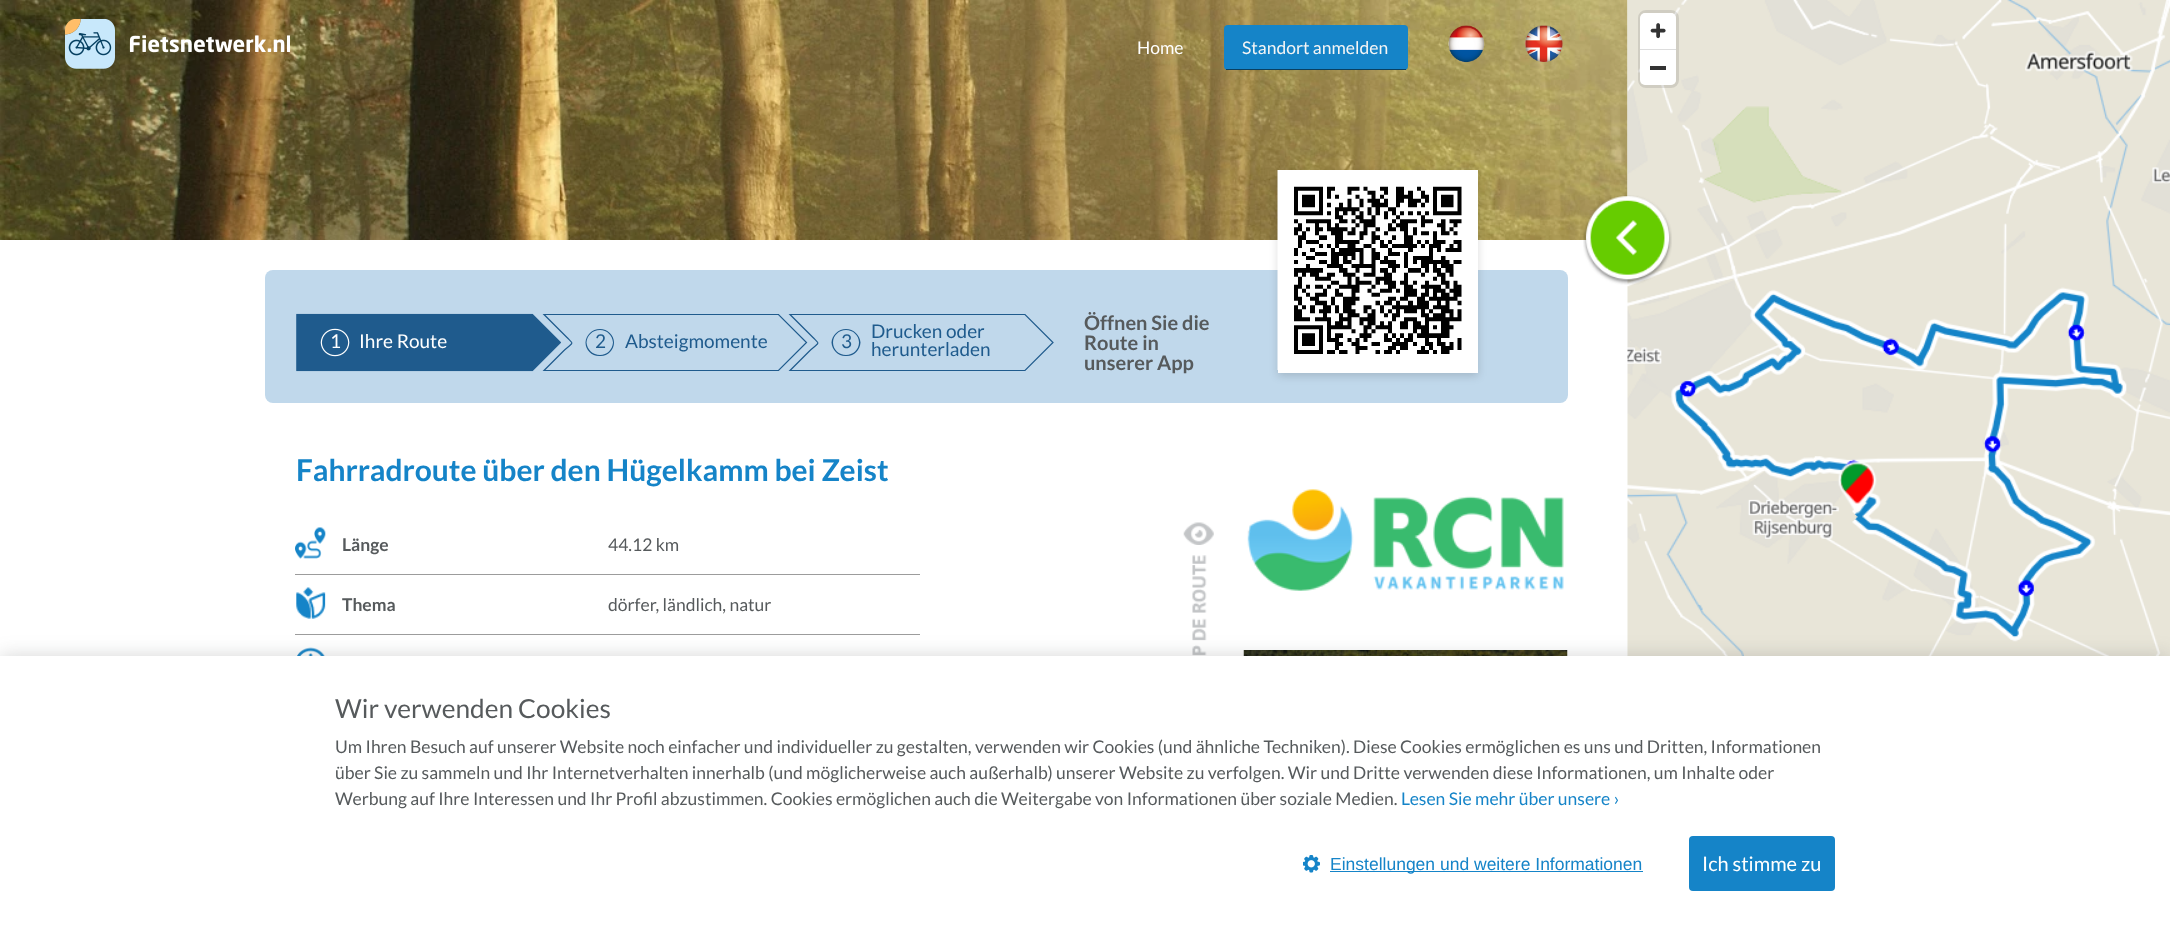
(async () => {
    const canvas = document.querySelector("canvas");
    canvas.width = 2170;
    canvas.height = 928;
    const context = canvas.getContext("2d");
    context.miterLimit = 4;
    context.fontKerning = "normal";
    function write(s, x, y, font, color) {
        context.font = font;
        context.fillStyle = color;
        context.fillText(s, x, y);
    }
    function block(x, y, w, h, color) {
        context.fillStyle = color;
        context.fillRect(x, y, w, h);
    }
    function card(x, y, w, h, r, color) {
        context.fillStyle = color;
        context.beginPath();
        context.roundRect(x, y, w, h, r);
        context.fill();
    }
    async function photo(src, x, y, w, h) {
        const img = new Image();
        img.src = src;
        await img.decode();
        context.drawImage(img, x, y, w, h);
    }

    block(0, 0, 2170, 928, "rgb(255, 255, 255)");
    await photo("media/4.png", 0, 0, 1628, 240);
    await photo("media/1.png", 65, 19, 225, 50);
    write("Home", 1137, 54, "17.5px Lato", "rgb(255, 255, 255)");
    card(1224, 25, 184, 45, 4, "rgb(21, 132, 200)");
    block(1226, 69, 180, 1, "rgb(10, 64, 97)");
    write("Standort anmelden", 1242, 54, "17.5px Lato", "rgb(245, 245, 245)");
    await photo("media/2.png", 1448, 25, 37, 38);
    await photo("media/3.png", 1525, 25, 38, 37);
    await photo("media/5.png", 1627, 0, 543, 656);
    context.beginPath();
    context.roundRect(1639.5, 11.5, 38, 75, 6.5);
    context.strokeStyle = "rgba(0, 0, 0, 0.1)";
    context.lineWidth = 3;
    context.stroke();
    card(1640, 13, 36, 72, 5, "rgb(255, 255, 255)");
    await photo("media/6.png", 1650, 23, 16, 16);
    block(1640, 49, 36, 1, "rgb(221, 221, 221)");
    block(1650, 66, 16, 4, "rgb(51, 51, 51)");
    await photo("media/7.png", 1583, 195, 89, 90);
    card(265, 270, 1303, 133, 8, "rgb(192, 216, 235)");
    await photo("media/8.png", 296, 313, 265, 59);
    write("1", 330, 348, "19px Lato", "rgb(255, 255, 255)");
    write("Ihre Route", 359, 348, "19px Lato", "rgb(255, 255, 255)");
    context.beginPath();
    context.moveTo(544, 370.5);
    context.lineTo(562.5, 352);
    context.bezierCurveTo(573, 341.5, 575, 345.5, 567, 337.5);
    context.lineTo(544, 314.5);
    context.lineTo(778.5, 314.5);
    context.lineTo(806.5, 342.5);
    context.lineTo(778.5, 370.5);
    context.closePath();
    context.strokeStyle = "rgb(31, 91, 141)";
    context.lineWidth = 1.2;
    context.stroke();
    context.fillStyle = "rgb(31, 91, 141)";
    context.beginPath();
    context.moveTo(600, 356);
    context.bezierCurveTo(592, 356.5, 585.5, 350, 585.5, 342.5);
    context.bezierCurveTo(586, 335, 592, 329, 600, 329);
    context.bezierCurveTo(607.5, 329, 614, 335, 614, 342.5);
    context.bezierCurveTo(614, 350, 607.5, 356.5, 600, 356);
    context.closePath();
    context.moveTo(600, 330);
    context.bezierCurveTo(592.5, 330, 587, 335.5, 586.5, 342.5);
    context.bezierCurveTo(587, 349.5, 593, 355, 600, 355);
    context.bezierCurveTo(607, 355, 612.5, 349.5, 613, 342.5);
    context.bezierCurveTo(612.5, 335.5, 607, 330, 600, 330);
    context.closePath();
    context.fill();
    write("2", 595, 348, "19px Lato", "rgb(31, 91, 141)");
    write("Absteigmomente", 625, 348, "19px Lato", "rgb(31, 91, 141)");
    context.beginPath();
    context.moveTo(790, 370.5);
    context.lineTo(808.5, 352);
    context.bezierCurveTo(819, 341.5, 821, 345.5, 813, 337.5);
    context.lineTo(790, 314.5);
    context.lineTo(1025, 314.5);
    context.lineTo(1053, 342.5);
    context.lineTo(1025, 370.5);
    context.closePath();
    context.stroke();
    context.beginPath();
    context.moveTo(846, 356);
    context.bezierCurveTo(838.5, 356.5, 832, 350, 831.5, 342.5);
    context.bezierCurveTo(832, 335, 838.5, 329, 846, 329);
    context.bezierCurveTo(853.5, 329, 860, 335, 860.5, 342.5);
    context.bezierCurveTo(860, 350, 854, 356.5, 846, 356);
    context.closePath();
    context.moveTo(846, 330);
    context.bezierCurveTo(839, 330, 833, 335.5, 833, 342.5);
    context.bezierCurveTo(833, 349.5, 839, 355, 846, 355);
    context.bezierCurveTo(853, 355, 859, 349.5, 859, 342.5);
    context.bezierCurveTo(859, 335.5, 853, 330, 846, 330);
    context.closePath();
    context.fill();
    write("Drucken oder", 871, 338, "19px Lato", "rgb(31, 91, 141)");
    write("3", 841, 348, "19px Lato", "rgb(31, 91, 141)");
    write("herunterladen", 871, 356, "19px Lato", "rgb(31, 91, 141)");
    write("Öffnen Sie die", 1084, 330, "bold 20px Lato", "rgb(86, 90, 92)");
    write("Route in", 1084, 350, "bold 20px Lato", "rgb(86, 90, 92)");
    write("unserer App", 1084, 370, "bold 20px Lato", "rgb(86, 90, 92)");
    context.fillStyle = "rgba(0, 0, 0, 0.15)";
    context.filter = "blur(4px)";
    context.beginPath();
    context.rect(1278, 174, 200, 202);
    context.fill();
    context.filter = "none";
    block(1278, 170, 200, 203, "rgb(255, 255, 255)");
    await photo("media/9.png", 1277, 170, 185, 200);
    write("Fahrradroute über den Hügelkamm bei Zeist", 296, 481, "bold 30px Lato", "rgb(21, 132, 200)");
    block(295, 574, 625, 1, "rgb(156, 156, 156)");
    await photo("media/10.png", 295, 527, 31, 32);
    write("Länge", 342, 551, "bold 17.5px Lato", "rgb(86, 90, 92)");
    write("44.12 km", 608, 551, "17.5px Lato", "rgb(86, 90, 92)");
    block(295, 634, 625, 1, "rgb(156, 156, 156)");
    await photo("media/11.png", 296, 587, 30, 32);
    write("Thema", 342, 611, "bold 17.5px Lato", "rgb(86, 90, 92)");
    write("dörfer, ländlich, natur", 608, 611, "17.5px Lato", "rgb(86, 90, 92)");
    await photo("media/12.png", 297, 647, 28, 9);
    await photo("media/13.png", 1183, 522, 31, 23);
    await photo("media/14.png", 1192, 555, 15, 101);
    await photo("media/15.png", 1247, 489, 317, 102);
    await photo("media/16.png", 1243, 650, 325, 6);
    context.fillStyle = "rgba(86, 90, 92, 0.25)";
    context.filter = "blur(9.5px)";
    context.beginPath();
    context.rect(0, 656, 2170, 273);
    context.fill();
    context.filter = "none";
    block(0, 656, 2170, 272, "rgb(255, 255, 255)");
    write("Wir verwenden Cookies", 335, 718, "26.25px Lato", "rgb(86, 90, 92)");
    write("Um Ihren Besuch auf unserer Website noch einfacher und individueller zu gestalten, verwenden wir Cookies (und ähnliche Techniken). Diese Cookies ermöglichen es uns und Dritten, Informationen", 335, 753, "17.5px Lato", "rgb(86, 90, 92)");
    write("über Sie zu sammeln und Ihr Internetverhalten innerhalb (und möglicherweise auch außerhalb) unserer Website zu verfolgen. Wir und Dritte verwenden diese Informationen, um Inhalte oder", 335, 779, "17.5px Lato", "rgb(86, 90, 92)");
    write("Werbung auf Ihre Interessen und Ihr Profil abzustimmen. Cookies ermöglichen auch die Weitergabe von Informationen über soziale Medien.", 335, 805, "17.5px Lato", "rgb(86, 90, 92)");
    write("Lesen Sie mehr über unsere ›", 1401, 805, "17.5px Lato", "rgb(21, 132, 200)");
    await photo("media/17.png", 1303, 855, 17, 18);
    block(1330, 871, 313, 1, "rgb(21, 132, 200)");
    write("Einstellungen und weitere Informationen", 1330, 870, "17.5px Liberation Sans", "rgb(21, 132, 200)");
    card(1689, 836, 146, 55, 4, "rgb(21, 132, 200)");
    write("Ich stimme zu", 1702, 871, "20px Lato", "rgb(255, 255, 255)");
})();
